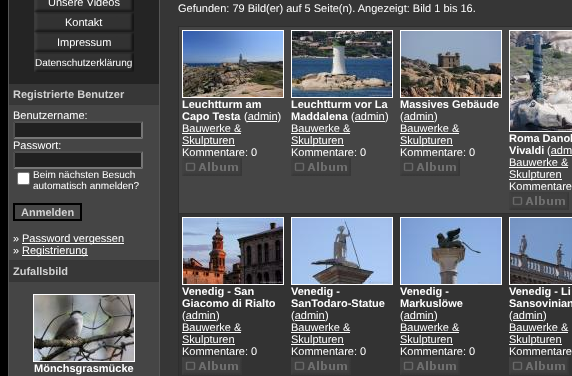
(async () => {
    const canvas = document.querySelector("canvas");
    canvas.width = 572;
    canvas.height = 376;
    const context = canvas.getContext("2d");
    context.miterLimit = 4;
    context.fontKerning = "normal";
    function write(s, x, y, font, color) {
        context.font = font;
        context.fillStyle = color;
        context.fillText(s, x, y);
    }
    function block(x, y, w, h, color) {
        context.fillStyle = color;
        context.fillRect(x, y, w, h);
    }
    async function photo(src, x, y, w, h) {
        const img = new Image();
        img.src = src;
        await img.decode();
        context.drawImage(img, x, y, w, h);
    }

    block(0, 0, 572, 376, "rgb(0, 0, 0)");
    block(8, 0, 1, 376, "rgb(85, 85, 85)");
    block(160, 0, 412, 376, "rgb(54, 54, 54)");
    block(9, 0, 150, 84, "rgb(36, 36, 36)");
    await photo("media/1.png", 34, 0, 100, 12);
    write("Unsere Videos", 48, 6, "11px Liberation Sans", "rgb(255, 255, 255)");
    await photo("media/2.png", 34, 12, 100, 20);
    write("Kontakt", 65, 26, "11px Liberation Sans", "rgb(255, 255, 255)");
    await photo("media/2.png", 34, 32, 100, 20);
    write("Impressum", 57, 46, "11px Liberation Sans", "rgb(255, 255, 255)");
    await photo("media/2.png", 34, 52, 100, 20);
    write("Datenschutzerklärung", 35, 66, "10px Liberation Sans", "rgb(255, 255, 255)");
    block(9, 84, 150, 20, "rgb(55, 55, 55)");
    write("Registrierte Benutzer", 13, 98, "bold 11px Liberation Sans", "rgb(210, 210, 210)");
    block(9, 104, 150, 1, "rgb(54, 54, 54)");
    block(9, 105, 150, 155, "rgb(69, 69, 69)");
    write("Benutzername:", 13, 119, "11px Liberation Sans", "rgb(255, 255, 255)");
    block(13, 121, 130, 18, "rgb(32, 32, 32)");
    context.fillStyle = "rgb(79, 79, 79)";
    context.beginPath();
    context.moveTo(13, 121);
    context.lineTo(143, 121);
    context.lineTo(141, 123);
    context.lineTo(15, 123);
    context.closePath();
    context.fill();
    context.fillStyle = "rgb(118, 118, 118)";
    context.beginPath();
    context.moveTo(143, 121);
    context.lineTo(143, 139);
    context.lineTo(141, 137);
    context.lineTo(141, 123);
    context.closePath();
    context.fill();
    context.beginPath();
    context.moveTo(143, 139);
    context.lineTo(13, 139);
    context.lineTo(15, 137);
    context.lineTo(141, 137);
    context.closePath();
    context.fill();
    context.fillStyle = "rgb(79, 79, 79)";
    context.beginPath();
    context.moveTo(13, 139);
    context.lineTo(13, 121);
    context.lineTo(15, 123);
    context.lineTo(15, 137);
    context.closePath();
    context.fill();
    write("Passwort:", 13, 149, "11px Liberation Sans", "rgb(255, 255, 255)");
    block(13, 151, 130, 18, "rgb(32, 32, 32)");
    context.fillStyle = "rgb(79, 79, 79)";
    context.beginPath();
    context.moveTo(13, 151);
    context.lineTo(143, 151);
    context.lineTo(141, 153);
    context.lineTo(15, 153);
    context.closePath();
    context.fill();
    context.fillStyle = "rgb(118, 118, 118)";
    context.beginPath();
    context.moveTo(143, 151);
    context.lineTo(143, 169);
    context.lineTo(141, 167);
    context.lineTo(141, 153);
    context.closePath();
    context.fill();
    context.beginPath();
    context.moveTo(143, 169);
    context.lineTo(13, 169);
    context.lineTo(15, 167);
    context.lineTo(141, 167);
    context.closePath();
    context.fill();
    context.fillStyle = "rgb(79, 79, 79)";
    context.beginPath();
    context.moveTo(13, 169);
    context.lineTo(13, 151);
    context.lineTo(15, 153);
    context.lineTo(15, 167);
    context.closePath();
    context.fill();
    context.fillStyle = "rgb(255, 255, 255)";
    context.beginPath();
    context.roundRect(17.5, 172.5, 12, 12, 1.5);
    context.fill();
    context.strokeStyle = "rgb(118, 118, 118)";
    context.stroke();
    write("Beim nächsten Besuch", 33, 178, "10px Liberation Sans", "rgb(255, 255, 255)");
    write("automatisch anmelden?", 33, 189, "10px Liberation Sans", "rgb(255, 255, 255)");
    context.strokeStyle = "rgb(0, 0, 0)";
    context.lineWidth = 2;
    context.strokeRect(14, 204, 67, 16);
    write("Anmelden", 21, 216, "bold 11px Liberation Sans", "rgb(210, 210, 210)");
    write("»", 13, 242, "11px Liberation Sans", "rgb(255, 255, 255)");
    block(22, 243, 102, 1, "rgb(255, 255, 255)");
    write("Password vergessen", 22, 242, "11px Liberation Sans", "rgb(255, 255, 255)");
    write("»", 13, 254, "11px Liberation Sans", "rgb(255, 255, 255)");
    block(22, 255, 66, 1, "rgb(255, 255, 255)");
    write("Registrierung", 22, 254, "11px Liberation Sans", "rgb(255, 255, 255)");
    block(9, 260, 150, 1, "rgb(54, 54, 54)");
    block(9, 261, 150, 20, "rgb(55, 55, 55)");
    write("Zufallsbild", 13, 275, "bold 11px Liberation Sans", "rgb(210, 210, 210)");
    block(9, 281, 150, 1, "rgb(54, 54, 54)");
    block(9, 282, 150, 94, "rgb(69, 69, 69)");
    context.strokeStyle = "rgb(255, 255, 255)";
    context.lineWidth = 1;
    context.strokeRect(33.5, 294.5, 101, 67);
    await photo("media/3.png", 34, 295, 100, 66);
    write("Mönchsgrasmücke", 34, 372, "bold 11px Liberation Sans", "rgb(255, 255, 255)");
    block(159, 0, 1, 376, "rgb(85, 85, 85)");
    write("Gefunden: 79 Bild(er) auf 5 Seite(n). Angezeigt: Bild 1 bis 16.", 178, 12, "11px Liberation Sans", "rgb(255, 255, 255)");
    block(178, 26, 394, 350, "rgb(46, 46, 46)");
    block(179, 27, 393, 186, "rgb(69, 69, 69)");
    context.strokeRect(182.5, 30.5, 101, 67);
    await photo("media/4.png", 183, 31, 100, 66);
    write("Leuchtturm am", 182, 108, "bold 11px Liberation Sans", "rgb(255, 255, 255)");
    write("Capo Testa", 182, 120, "bold 11px Liberation Sans", "rgb(255, 255, 255)");
    write("(admin)", 244, 120, "11px Liberation Sans", "rgb(255, 255, 255)");
    block(247, 121, 30, 1, "rgb(255, 255, 255)");
    write("Bauwerke &", 182, 132, "11px Liberation Sans", "rgb(255, 255, 255)");
    block(182, 133, 59, 1, "rgb(255, 255, 255)");
    block(182, 145, 53, 1, "rgb(255, 255, 255)");
    write("Skulpturen", 182, 144, "11px Liberation Sans", "rgb(255, 255, 255)");
    write("Kommentare: 0", 182, 156, "11px Liberation Sans", "rgb(255, 255, 255)");
    await photo("media/5.png", 182, 158, 60, 18);
    context.strokeRect(291.5, 30.5, 101, 67);
    await photo("media/6.png", 292, 31, 100, 66);
    write("Leuchtturm vor La", 291, 108, "bold 11px Liberation Sans", "rgb(255, 255, 255)");
    write("Maddalena", 291, 120, "bold 11px Liberation Sans", "rgb(255, 255, 255)");
    write("(admin", 351, 120, "11px Liberation Sans", "rgb(255, 255, 255)");
    block(355, 121, 30, 1, "rgb(255, 255, 255)");
    write(")", 385, 120, "11px Liberation Sans", "rgb(255, 255, 255)");
    write("Bauwerke &", 291, 132, "11px Liberation Sans", "rgb(255, 255, 255)");
    block(291, 133, 59, 1, "rgb(255, 255, 255)");
    block(291, 145, 53, 1, "rgb(255, 255, 255)");
    write("Skulpturen", 291, 144, "11px Liberation Sans", "rgb(255, 255, 255)");
    write("Kommentare: 0", 291, 156, "11px Liberation Sans", "rgb(255, 255, 255)");
    await photo("media/5.png", 291, 158, 60, 18);
    context.strokeRect(400.5, 30.5, 101, 67);
    await photo("media/7.png", 401, 31, 100, 66);
    write("Massives Gebäude", 400, 108, "bold 11px Liberation Sans", "rgb(255, 255, 255)");
    write("(admin", 400, 120, "11px Liberation Sans", "rgb(255, 255, 255)");
    block(404, 121, 30, 1, "rgb(255, 255, 255)");
    write(")", 434, 120, "11px Liberation Sans", "rgb(255, 255, 255)");
    write("Bauwerke &", 400, 132, "11px Liberation Sans", "rgb(255, 255, 255)");
    block(400, 133, 59, 1, "rgb(255, 255, 255)");
    block(400, 145, 53, 1, "rgb(255, 255, 255)");
    write("Skulpturen", 400, 144, "11px Liberation Sans", "rgb(255, 255, 255)");
    write("Kommentare: 0", 400, 156, "11px Liberation Sans", "rgb(255, 255, 255)");
    await photo("media/5.png", 400, 158, 60, 18);
    context.strokeRect(509.5, 30.5, 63, 101);
    await photo("media/8.png", 510, 31, 62, 100);
    write("Roma Danol", 509, 142, "bold 11px Liberation Sans", "rgb(255, 255, 255)");
    write("Vivaldi", 509, 154, "bold 11px Liberation Sans", "rgb(255, 255, 255)");
    write("(adm", 547, 154, "11px Liberation Sans", "rgb(255, 255, 255)");
    block(551, 155, 21, 1, "rgb(255, 255, 255)");
    write("Bauwerke &", 509, 166, "11px Liberation Sans", "rgb(255, 255, 255)");
    block(509, 167, 59, 1, "rgb(255, 255, 255)");
    block(509, 179, 53, 1, "rgb(255, 255, 255)");
    write("Skulpturen", 509, 178, "11px Liberation Sans", "rgb(255, 255, 255)");
    write("Kommentare", 509, 190, "11px Liberation Sans", "rgb(255, 255, 255)");
    await photo("media/5.png", 509, 192, 60, 18);
    block(179, 214, 393, 162, "rgb(51, 51, 51)");
    context.strokeRect(182.5, 217.5, 101, 67);
    await photo("media/9.png", 183, 218, 100, 66);
    write("Venedig - San", 182, 295, "bold 11px Liberation Sans", "rgb(255, 255, 255)");
    write("Giacomo di Rialto", 182, 307, "bold 11px Liberation Sans", "rgb(255, 255, 255)");
    write("(admin", 182, 319, "11px Liberation Sans", "rgb(255, 255, 255)");
    block(186, 320, 30, 1, "rgb(255, 255, 255)");
    write(")", 216, 319, "11px Liberation Sans", "rgb(255, 255, 255)");
    write("Bauwerke &", 182, 331, "11px Liberation Sans", "rgb(255, 255, 255)");
    block(182, 332, 59, 1, "rgb(255, 255, 255)");
    block(182, 344, 53, 1, "rgb(255, 255, 255)");
    write("Skulpturen", 182, 343, "11px Liberation Sans", "rgb(255, 255, 255)");
    write("Kommentare: 0", 182, 355, "11px Liberation Sans", "rgb(255, 255, 255)");
    await photo("media/5.png", 182, 357, 60, 18);
    context.strokeRect(291.5, 217.5, 101, 67);
    await photo("media/10.png", 292, 218, 100, 66);
    write("Venedig -", 291, 295, "bold 11px Liberation Sans", "rgb(255, 255, 255)");
    write("SanTodaro-Statue", 291, 307, "bold 11px Liberation Sans", "rgb(255, 255, 255)");
    write("(admin", 291, 319, "11px Liberation Sans", "rgb(255, 255, 255)");
    block(295, 320, 30, 1, "rgb(255, 255, 255)");
    write(")", 325, 319, "11px Liberation Sans", "rgb(255, 255, 255)");
    write("Bauwerke &", 291, 331, "11px Liberation Sans", "rgb(255, 255, 255)");
    block(291, 332, 59, 1, "rgb(255, 255, 255)");
    block(291, 344, 53, 1, "rgb(255, 255, 255)");
    write("Skulpturen", 291, 343, "11px Liberation Sans", "rgb(255, 255, 255)");
    write("Kommentare: 0", 291, 355, "11px Liberation Sans", "rgb(255, 255, 255)");
    await photo("media/5.png", 291, 357, 60, 18);
    context.strokeRect(400.5, 217.5, 101, 67);
    await photo("media/11.png", 401, 218, 100, 66);
    write("Venedig -", 400, 295, "bold 11px Liberation Sans", "rgb(255, 255, 255)");
    write("Markuslöwe", 400, 307, "bold 11px Liberation Sans", "rgb(255, 255, 255)");
    write("(admin", 400, 319, "11px Liberation Sans", "rgb(255, 255, 255)");
    block(404, 320, 30, 1, "rgb(255, 255, 255)");
    write(")", 434, 319, "11px Liberation Sans", "rgb(255, 255, 255)");
    write("Bauwerke &", 400, 331, "11px Liberation Sans", "rgb(255, 255, 255)");
    block(400, 332, 59, 1, "rgb(255, 255, 255)");
    block(400, 344, 53, 1, "rgb(255, 255, 255)");
    write("Skulpturen", 400, 343, "11px Liberation Sans", "rgb(255, 255, 255)");
    write("Kommentare: 0", 400, 355, "11px Liberation Sans", "rgb(255, 255, 255)");
    await photo("media/5.png", 400, 357, 60, 18);
    context.strokeRect(509.5, 217.5, 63, 67);
    await photo("media/12.png", 510, 218, 62, 66);
    write("Venedig - Li", 509, 295, "bold 11px Liberation Sans", "rgb(255, 255, 255)");
    write("Sansovinian", 509, 307, "bold 11px Liberation Sans", "rgb(255, 255, 255)");
    write("(admin", 509, 319, "11px Liberation Sans", "rgb(255, 255, 255)");
    block(513, 320, 30, 1, "rgb(255, 255, 255)");
    write(")", 543, 319, "11px Liberation Sans", "rgb(255, 255, 255)");
    write("Bauwerke &", 509, 331, "11px Liberation Sans", "rgb(255, 255, 255)");
    block(509, 332, 59, 1, "rgb(255, 255, 255)");
    block(509, 344, 53, 1, "rgb(255, 255, 255)");
    write("Skulpturen", 509, 343, "11px Liberation Sans", "rgb(255, 255, 255)");
    write("Kommentare", 509, 355, "11px Liberation Sans", "rgb(255, 255, 255)");
    await photo("media/5.png", 509, 357, 60, 18);
})();
